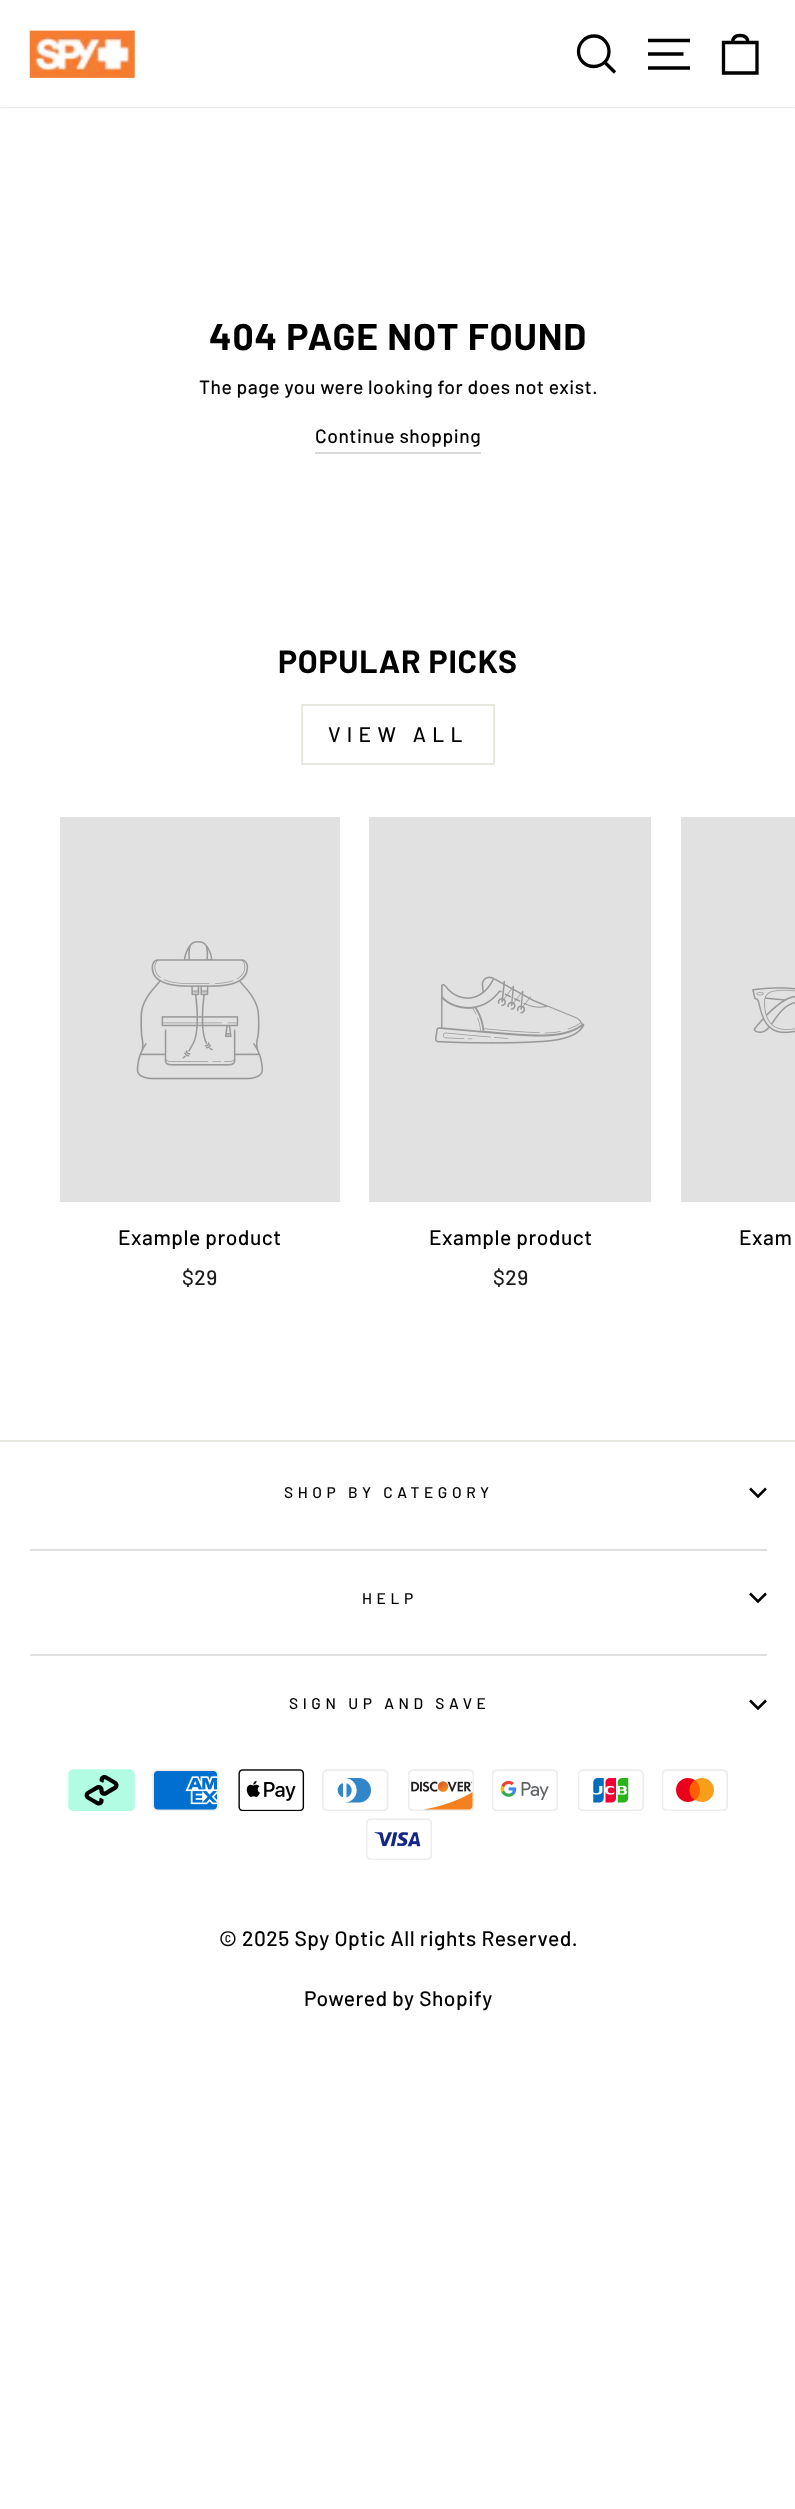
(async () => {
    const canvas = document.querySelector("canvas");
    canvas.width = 795;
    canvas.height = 2509;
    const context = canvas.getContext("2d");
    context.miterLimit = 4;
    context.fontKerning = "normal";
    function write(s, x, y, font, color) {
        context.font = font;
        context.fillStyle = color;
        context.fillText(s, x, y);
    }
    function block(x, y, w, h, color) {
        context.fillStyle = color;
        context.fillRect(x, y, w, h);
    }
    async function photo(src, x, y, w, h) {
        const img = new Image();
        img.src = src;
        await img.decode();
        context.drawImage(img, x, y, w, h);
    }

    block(0, 0, 795, 2509, "rgb(255, 255, 255)");
    context.fillStyle = "rgba(0, 0, 0, 0.2)";
    context.filter = "blur(1px)";
    context.beginPath();
    context.rect(0, 0, 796, 107);
    context.fill();
    context.filter = "none";
    block(0, 0, 795, 107, "rgb(255, 255, 255)");
    await photo("media/1.png", 29, 30, 106, 48);
    context.beginPath();
    context.moveTo(609, 51.5);
    context.bezierCurveTo(609, 60, 602.5, 66.5, 594, 66.5);
    context.bezierCurveTo(585.5, 66.5, 578.5, 60, 578.5, 51.5);
    context.bezierCurveTo(578.5, 43, 585.5, 36, 594, 36);
    context.bezierCurveTo(602.5, 36, 609, 43, 609, 51.5);
    context.closePath();
    context.moveTo(615, 72.5);
    context.lineTo(605, 62.5);
    context.strokeStyle = "rgb(0, 0, 0)";
    context.lineWidth = 3.3;
    context.stroke();
    context.beginPath();
    context.moveTo(648, 40.5);
    context.lineTo(690, 40.5);
    context.moveTo(648, 54);
    context.lineTo(683.5, 54);
    context.moveTo(648, 68);
    context.lineTo(690, 68);
    context.stroke();
    context.beginPath();
    context.moveTo(723.5, 42.5);
    context.lineTo(757, 42.5);
    context.lineTo(757, 73);
    context.lineTo(723.5, 73);
    context.closePath();
    context.moveTo(732.5, 43);
    context.bezierCurveTo(732.5, 37, 736, 35.5, 740, 35.5);
    context.bezierCurveTo(744.5, 35.5, 748, 37, 748, 43);
    context.stroke();
    context.letterSpacing = "0.9px";
    write("404 PAGE NOT FOUND", 209, 350, "bold 37.25px Barlow", "rgb(0, 0, 0)");
    context.letterSpacing = "0.5px";
    write("The page you were looking for does not exist.", 199, 394, "500 19.3px Barlow", "rgb(0, 0, 0)");
    block(315, 452, 166, 2, "rgb(217, 217, 217)");
    write("Continue shopping", 315, 443, "500 19.3px Barlow", "rgb(0, 0, 0)");
    context.letterSpacing = "0.75px";
    write("POPULAR PICKS", 278, 673, "bold 32px Barlow", "rgb(0, 0, 0)");
    context.strokeStyle = "rgb(232, 232, 225)";
    context.lineWidth = 2;
    context.strokeRect(302, 705, 192, 59);
    context.letterSpacing = "6.25px";
    write("VIEW ALL", 328, 742, "500 21px Barlow", "rgb(0, 0, 0)");
    block(60, 817, 280, 385, "rgb(225, 225, 225)");
    await photo("media/2.png", 136, 941, 127, 139);
    context.letterSpacing = "0.5px";
    write("Example product", 118, 1245, "500 21px Barlow", "rgb(0, 0, 0)");
    write("$29", 182, 1285, "500 21px Barlow", "rgb(28, 29, 29)");
    block(369, 817, 282, 385, "rgb(225, 225, 225)");
    await photo("media/3.png", 435, 976, 150, 68);
    write("Example product", 429, 1245, "500 21px Barlow", "rgb(0, 0, 0)");
    write("$29", 493, 1285, "500 21px Barlow", "rgb(28, 29, 29)");
    block(681, 817, 114, 385, "rgb(225, 225, 225)");
    await photo("media/4.png", 752, 987, 43, 47);
    write("Exam", 739, 1245, "500 21px Barlow", "rgb(0, 0, 0)");
    block(0, 1440, 795, 2, "rgb(232, 232, 225)");
    context.letterSpacing = "4.6px";
    write("SHOP BY CATEGORY", 284, 1498, "500 15.5px Barlow", "rgb(0, 0, 0)");
    context.beginPath();
    context.moveTo(750, 1488.5);
    context.lineTo(758, 1496.5);
    context.lineTo(766, 1488.5);
    context.strokeStyle = "rgb(0, 0, 0)";
    context.lineWidth = 2.5;
    context.stroke();
    block(30, 1549, 737, 2, "rgb(224, 224, 224)");
    write("HELP", 362, 1604, "500 15.5px Barlow", "rgb(0, 0, 0)");
    context.beginPath();
    context.moveTo(750, 1593.5);
    context.lineTo(758, 1601.5);
    context.lineTo(766, 1593.5);
    context.stroke();
    block(30, 1654, 737, 2, "rgb(224, 224, 224)");
    write("SIGN UP AND SAVE", 289, 1709, "500 15.5px Barlow", "rgb(0, 0, 0)");
    context.beginPath();
    context.moveTo(750, 1700.5);
    context.lineTo(758, 1708.5);
    context.lineTo(766, 1700.5);
    context.stroke();
    await photo("media/5.png", 68, 1769, 67, 42);
    await photo("media/6.png", 152, 1769, 67, 42);
    await photo("media/7.png", 238, 1769, 67, 42);
    await photo("media/8.png", 322, 1769, 67, 42);
    await photo("media/9.png", 408, 1769, 66, 42);
    await photo("media/10.png", 492, 1769, 66, 42);
    await photo("media/11.png", 578, 1769, 66, 42);
    await photo("media/12.png", 662, 1769, 66, 42);
    await photo("media/13.png", 366, 1818, 66, 42);
    context.letterSpacing = "0.5px";
    write("© 2025 Spy Optic All rights Reserved.", 219, 1946, "500 21px Barlow", "rgb(0, 0, 0)");
    write("Powered by Shopify", 304, 2006, "500 21px Barlow", "rgb(0, 0, 0)");
})();
